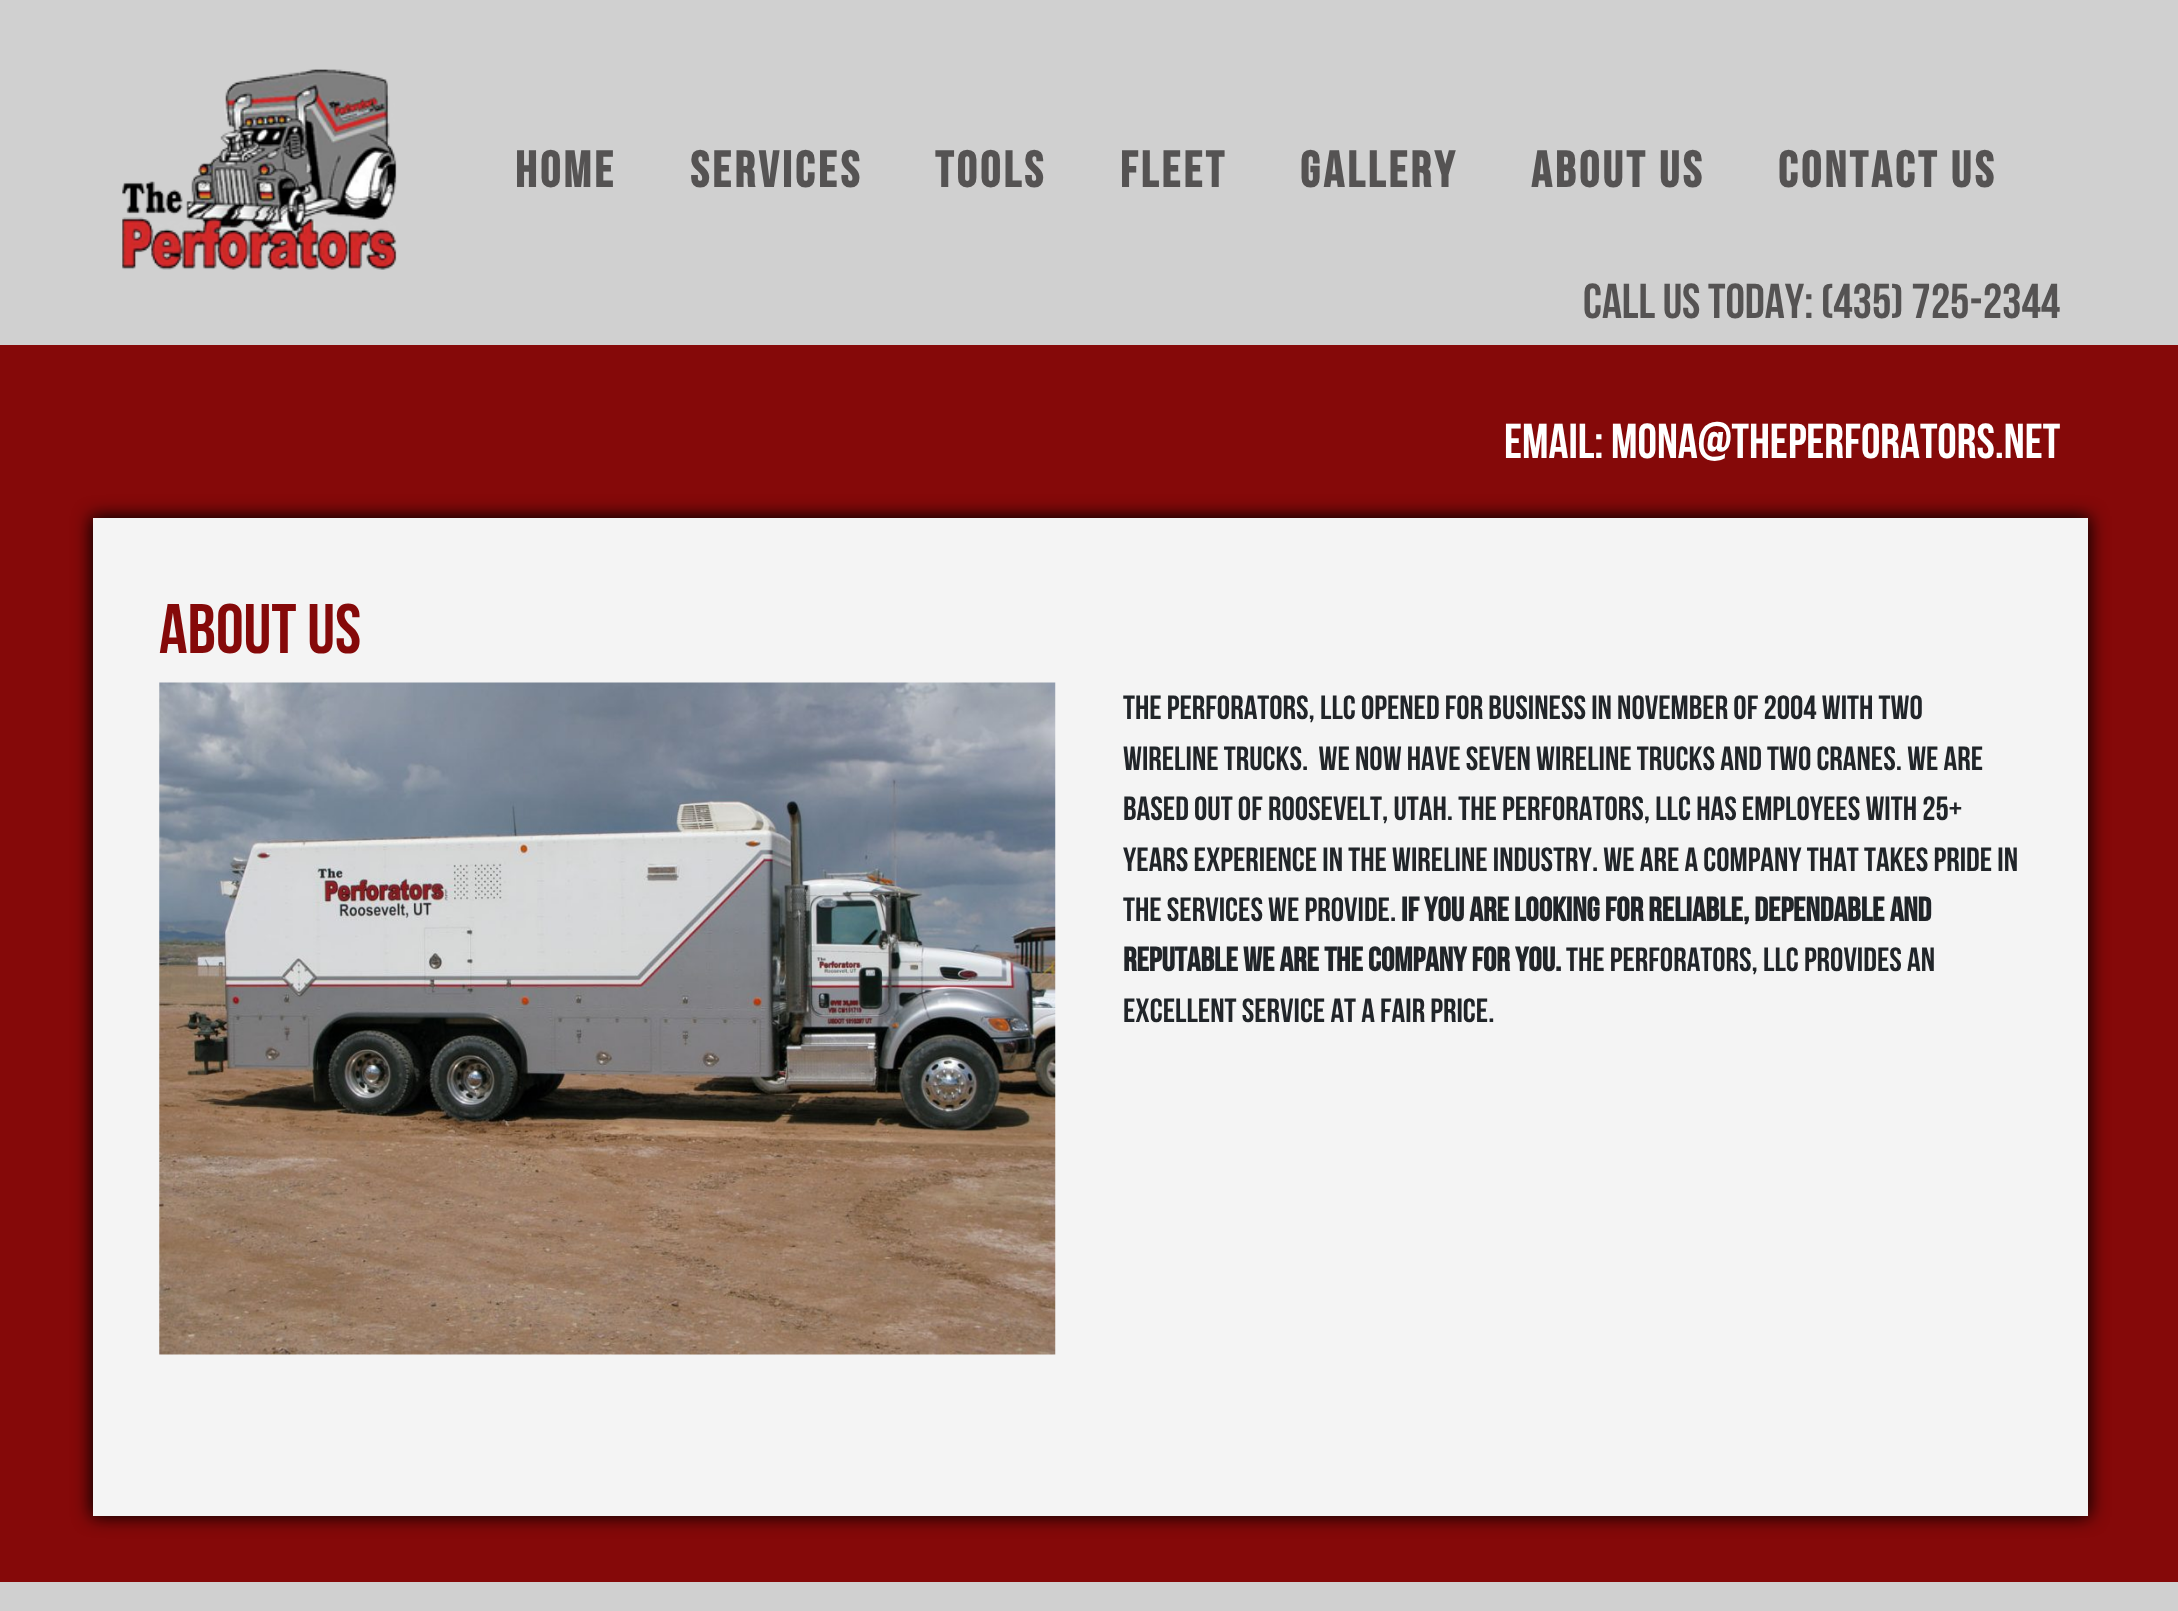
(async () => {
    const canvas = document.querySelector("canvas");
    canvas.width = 2178;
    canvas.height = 1611;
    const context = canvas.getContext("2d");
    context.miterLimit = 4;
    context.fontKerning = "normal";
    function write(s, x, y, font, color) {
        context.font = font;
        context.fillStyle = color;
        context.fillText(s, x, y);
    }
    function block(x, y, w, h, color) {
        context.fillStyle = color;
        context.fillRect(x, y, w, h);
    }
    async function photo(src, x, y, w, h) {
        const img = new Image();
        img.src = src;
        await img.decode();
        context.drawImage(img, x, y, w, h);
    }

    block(0, 0, 2178, 1611, "rgb(208, 208, 208)");
    await photo("media/1.png", 122, 69, 275, 201);
    context.letterSpacing = "3.5px";
    write("HOME", 515, 187, "bold 50.5px Bebas Neue", "rgb(85, 83, 83)");
    write("SERVICES", 690, 187, "bold 50.5px Bebas Neue", "rgb(85, 83, 83)");
    write("TOOLS", 935, 187, "bold 50.5px Bebas Neue", "rgb(85, 83, 83)");
    write("FLEET", 1120, 187, "bold 50.5px Bebas Neue", "rgb(85, 83, 83)");
    write("GALLERY", 1300, 187, "bold 50.5px Bebas Neue", "rgb(85, 83, 83)");
    write("ABOUT US", 1531, 187, "bold 50.5px Bebas Neue", "rgb(85, 83, 83)");
    write("CONTACT US", 1778, 187, "bold 50.5px Bebas Neue", "rgb(85, 83, 83)");
    context.letterSpacing = "0px";
    write("CALL US TODAY: (435) 725-2344", 1583, 318, "49px Bebas Neue", "rgb(85, 83, 83)");
    block(0, 345, 2178, 1237, "rgb(133, 9, 9)");
    write("EMAIL: MONA@THEPERFORATORS.NET", 1504, 458, "49px Bebas Neue", "rgb(255, 255, 255)");
    context.fillStyle = "rgb(0, 0, 0)";
    context.filter = "blur(9px)";
    context.beginPath();
    context.rect(91, 516, 1999, 1001);
    context.fill();
    context.filter = "none";
    block(93, 518, 1995, 998, "rgb(244, 244, 244)");
    write("About Us", 159, 653, "70px Bebas Neue", "rgb(133, 9, 9)");
    await photo("media/2.png", 159, 682, 897, 673);
    write("The Perforators, LLC opened for business in November of 2004 with two", 1123, 719, "33.6px Bebas Neue", "rgb(33, 37, 41)");
    write("wireline trucks.  We now have seven wireline trucks and two cranes. We are", 1123, 770, "33.6px Bebas Neue", "rgb(33, 37, 41)");
    write("based out of Roosevelt, Utah. The Perforators, LLC has employees with 25+", 1123, 820, "33.6px Bebas Neue", "rgb(33, 37, 41)");
    write("years experience in the wireline industry. We are a company that takes pride in", 1123, 871, "33.6px Bebas Neue", "rgb(33, 37, 41)");
    write("the services we provide.", 1123, 921, "33.6px Bebas Neue", "rgb(33, 37, 41)");
    write("If you are looking for reliable, dependable and", 1401, 921, "bold 33.6px Bebas Neue", "rgb(33, 37, 41)");
    write("reputable we are the company for you.", 1123, 971, "bold 33.6px Bebas Neue", "rgb(33, 37, 41)");
    write("The Perforators, LLC provides an", 1566, 971, "33.6px Bebas Neue", "rgb(33, 37, 41)");
    write("excellent service at a fair price.", 1123, 1022, "33.6px Bebas Neue", "rgb(33, 37, 41)");
})();
